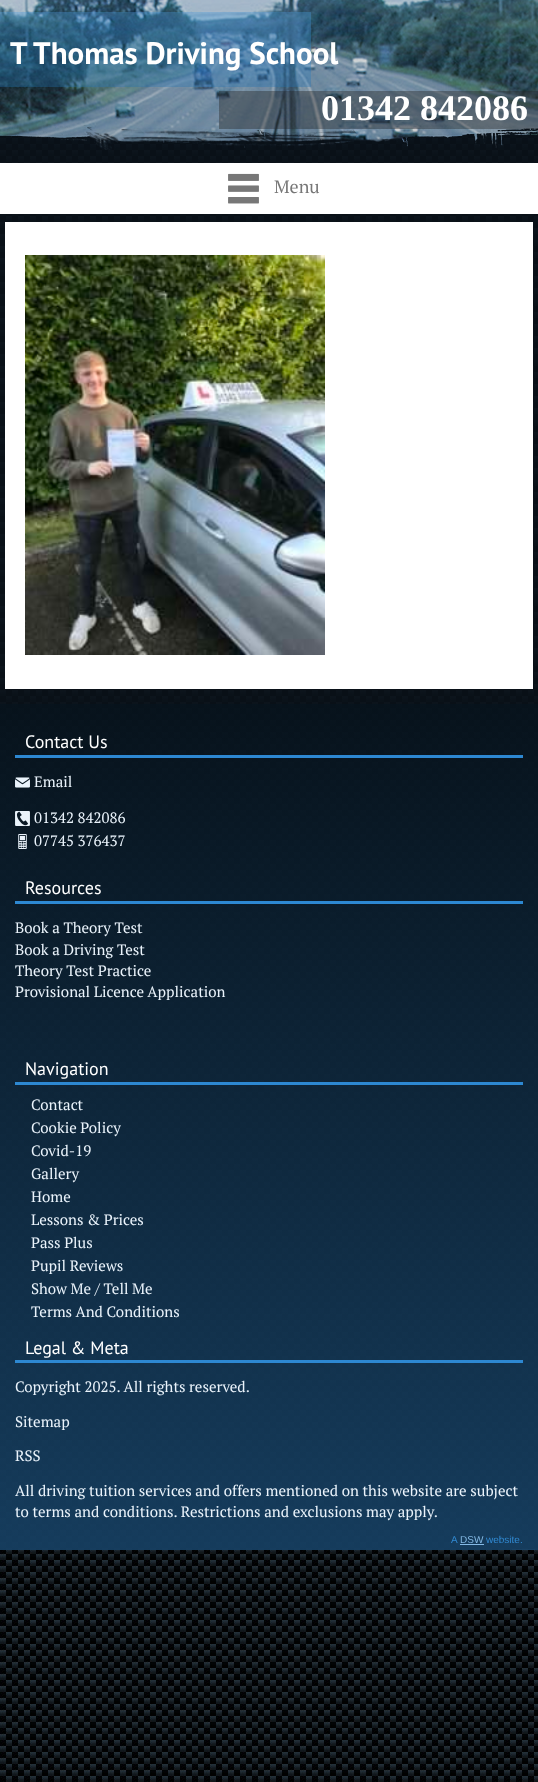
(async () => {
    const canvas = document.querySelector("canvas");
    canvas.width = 538;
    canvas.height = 1782;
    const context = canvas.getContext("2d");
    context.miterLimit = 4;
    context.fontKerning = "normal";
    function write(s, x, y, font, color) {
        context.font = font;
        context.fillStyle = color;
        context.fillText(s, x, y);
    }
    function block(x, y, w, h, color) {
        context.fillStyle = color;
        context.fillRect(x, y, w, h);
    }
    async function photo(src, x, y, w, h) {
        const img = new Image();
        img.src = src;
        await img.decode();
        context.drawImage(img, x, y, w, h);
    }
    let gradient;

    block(0, 0, 538, 1782, "rgb(255, 255, 255)");
    await photo("media/1.png", 0, 0, 538, 1782);
    await photo("media/2.png", 0, 0, 538, 150);
    block(512, 1549, 23, 1, "rgb(133, 186, 229)");
    block(0, 0, 538, 1550, "rgba(10, 18, 26, 0.9)");
    await photo("media/3.png", 0, 0, 538, 150);
    await photo("media/4.png", 0, 12, 311, 75);
    write("T Thomas Driving School", 10, 64, "bold 31px PT Sans", "rgb(255, 255, 255)");
    block(219, 91, 319, 38, "rgba(37, 37, 37, 0.4)");
    write("01342 842086", 321, 120, "bold 36px Liberation Serif", "rgb(255, 255, 255)");
    block(0, 163, 538, 51, "rgb(255, 255, 255)");
    await photo("media/5.png", 228, 173, 31, 31);
    write("Menu", 274, 193, "18px PT Serif", "rgb(119, 119, 119)");
    block(5, 222, 528, 467, "rgb(255, 255, 255)");
    await photo("media/6.png", 25, 255, 300, 400);
    gradient = context.createLinearGradient(269, 704, 269, 1550);
    gradient.addColorStop(0, "rgba(6, 19, 29, 0.67)");
    gradient.addColorStop(1, "rgba(27, 81, 126, 0.67)");
    context.fillStyle = gradient;
    context.fillRect(0, 704, 538, 846);
    block(15, 755, 508, 3, "rgb(45, 136, 210)");
    write("Contact Us", 25, 748, "18px PT Sans", "rgb(255, 255, 255)");
    await photo("media/7.png", 15, 777, 15, 11);
    write("Email", 34, 787, "15px PT Serif", "rgb(234, 243, 251)");
    await photo("media/8.png", 15, 811, 15, 15);
    write("01342 842086", 34, 823, "15px PT Serif", "rgb(234, 243, 251)");
    await photo("media/9.png", 18, 834, 9, 15);
    write("07745 376437", 34, 846, "15px PT Serif", "rgb(234, 243, 251)");
    block(15, 901, 508, 3, "rgb(45, 136, 210)");
    write("Resources", 25, 894, "18px PT Sans", "rgb(255, 255, 255)");
    write("Book a Theory Test", 15, 933, "15px PT Serif", "rgb(234, 243, 251)");
    write("Book a Driving Test", 15, 955, "15px PT Serif", "rgb(234, 243, 251)");
    write("Theory Test Practice", 15, 976, "15px PT Serif", "rgb(234, 243, 251)");
    write("Provisional Licence Application", 15, 997, "15px PT Serif", "rgb(234, 243, 251)");
    block(15, 1082, 508, 3, "rgb(45, 136, 210)");
    write("Navigation", 25, 1075, "18px PT Sans", "rgb(255, 255, 255)");
    write("Contact", 31, 1110, "15px PT Serif", "rgb(234, 243, 251)");
    write("Cookie Policy", 31, 1133, "15px PT Serif", "rgb(234, 243, 251)");
    write("Covid-19", 31, 1156, "15px PT Serif", "rgb(234, 243, 251)");
    write("Gallery", 31, 1179, "15px PT Serif", "rgb(234, 243, 251)");
    write("Home", 31, 1202, "15px PT Serif", "rgb(234, 243, 251)");
    write("Lessons & Prices", 31, 1225, "15px PT Serif", "rgb(234, 243, 251)");
    write("Pass Plus", 31, 1248, "15px PT Serif", "rgb(234, 243, 251)");
    write("Pupil Reviews", 31, 1271, "15px PT Serif", "rgb(234, 243, 251)");
    write("Show Me / Tell Me", 31, 1294, "15px PT Serif", "rgb(234, 243, 251)");
    write("Terms And Conditions", 31, 1317, "15px PT Serif", "rgb(234, 243, 251)");
    block(15, 1360, 508, 3, "rgb(45, 136, 210)");
    write("Legal & Meta", 25, 1354, "18px PT Sans", "rgb(255, 255, 255)");
    write("Copyright 2025. All rights reserved.", 15, 1392, "15px PT Serif", "rgb(234, 243, 251)");
    write("Sitemap", 15, 1427, "15px PT Serif", "rgb(234, 243, 251)");
    write("RSS", 15, 1461, "15px PT Serif", "rgb(234, 243, 251)");
    write("All driving tuition services and offers mentioned on this website are subject", 15, 1496, "15px PT Serif", "rgb(234, 243, 251)");
    write("to terms and conditions. Restrictions and exclusions may apply.", 15, 1517, "15px PT Serif", "rgb(234, 243, 251)");
    write("A", 451, 1543, "10px Liberation Sans", "rgb(49, 138, 211)");
    write("DSW", 460, 1543, "10px Liberation Sans", "rgb(133, 186, 229)");
    block(460, 1544, 24, 1, "rgb(133, 186, 229)");
    write("website.", 486, 1543, "10px Liberation Sans", "rgb(49, 138, 211)");
})();
